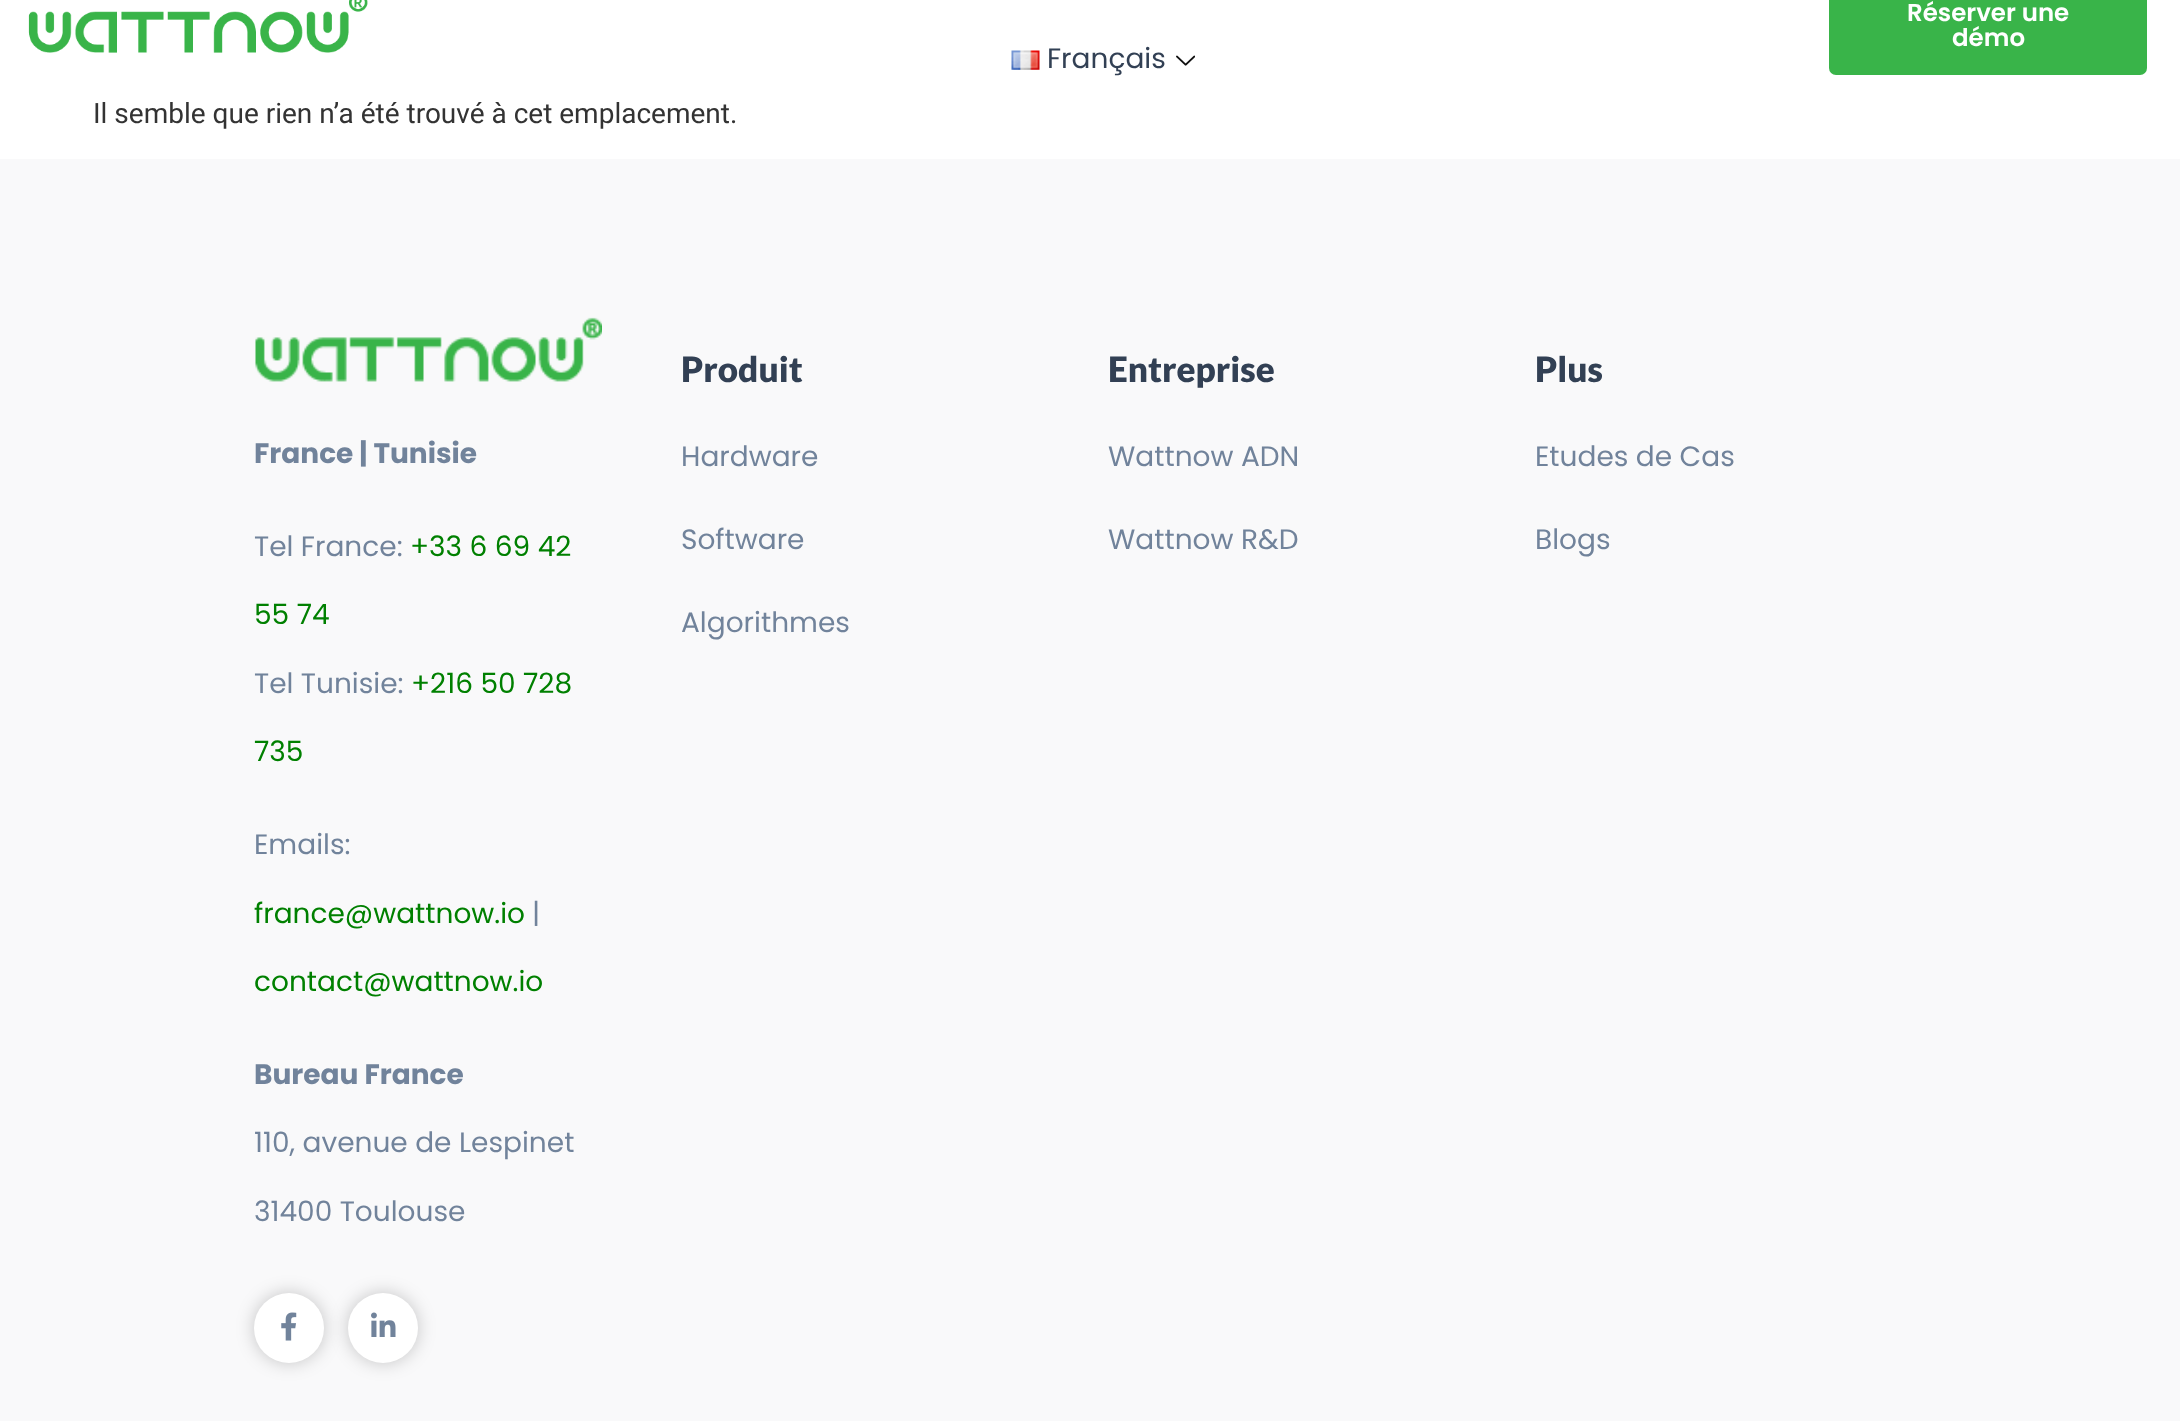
(async () => {
    const canvas = document.querySelector("canvas");
    canvas.width = 2180;
    canvas.height = 1421;
    const context = canvas.getContext("2d");
    context.miterLimit = 4;
    context.fontKerning = "normal";
    function write(s, x, y, font, color) {
        context.font = font;
        context.fillStyle = color;
        context.fillText(s, x, y);
    }
    function block(x, y, w, h, color) {
        context.fillStyle = color;
        context.fillRect(x, y, w, h);
    }
    function card(x, y, w, h, r, color) {
        context.fillStyle = color;
        context.beginPath();
        context.roundRect(x, y, w, h, r);
        context.fill();
    }
    async function photo(src, x, y, w, h) {
        const img = new Image();
        img.src = src;
        await img.decode();
        context.drawImage(img, x, y, w, h);
    }

    block(0, 0, 2180, 1421, "rgb(255, 255, 255)");
    await photo("media/1.png", 28, 0, 340, 53);
    card(1829, -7, 318, 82, 7, "rgb(57, 180, 73)");
    write("Réserver une", 1907, 21, "600 24.5px Poppins", "rgb(255, 255, 255)");
    write("démo", 1952, 46, "600 24.5px Poppins", "rgb(255, 255, 255)");
    await photo("media/2.png", 1011, 50, 29, 20);
    write("Français", 1047, 68, "28px Poppins", "rgb(50, 64, 84)");
    await photo("media/3.png", 1176, 55, 19, 11);
    write("Il semble que rien n’a été trouvé à cet emplacement.", 93, 123, "28px Roboto", "rgb(51, 51, 51)");
    block(0, 159, 2180, 1231, "rgb(249, 249, 250)");
    await photo("media/4.png", 255, 317, 347, 65);
    write("France | Tunisie", 254, 463, "bold 28px Poppins", "rgb(113, 131, 155)");
    write("Tel France:", 254, 556, "28px Poppins", "rgb(113, 131, 155)");
    write("+33 6 69 42", 410, 556, "28px Poppins", "rgb(0, 128, 0)");
    write("55 74", 254, 624, "28px Poppins", "rgb(0, 128, 0)");
    write("Tel Tunisie:", 254, 693, "28px Poppins", "rgb(113, 131, 155)");
    write("+216 50 728", 411, 693, "28px Poppins", "rgb(0, 128, 0)");
    write("735", 254, 761, "28px Poppins", "rgb(0, 128, 0)");
    write("Emails:", 254, 854, "28px Poppins", "rgb(113, 131, 155)");
    write("france@wattnow.io", 254, 923, "28px Poppins", "rgb(0, 128, 0)");
    write("|", 532, 923, "28px Poppins", "rgb(113, 131, 155)");
    write("contact@wattnow.io", 254, 991, "28px Poppins", "rgb(0, 128, 0)");
    write("Bureau France", 254, 1084, "bold 28px Poppins", "rgb(113, 131, 155)");
    write("110, avenue de Lespinet", 254, 1152, "28px Poppins", "rgb(113, 131, 155)");
    write("31400 Toulouse", 254, 1221, "28px Poppins", "rgb(113, 131, 155)");
    context.fillStyle = "rgba(0, 0, 0, 0.21)";
    context.filter = "blur(9px)";
    context.beginPath();
    context.roundRect(254, 1293, 70, 70, 35);
    context.fill();
    context.filter = "none";
    context.fillStyle = "rgb(255, 255, 255)";
    context.beginPath();
    context.arc(289, 1328, 35, 0, Math.PI * 2);
    context.fill();
    await photo("media/5.png", 281, 1312, 16, 29);
    context.fillStyle = "rgba(0, 0, 0, 0.21)";
    context.filter = "blur(9px)";
    context.beginPath();
    context.roundRect(348, 1293, 70, 70, 35);
    context.fill();
    context.filter = "none";
    context.fillStyle = "rgb(255, 255, 255)";
    context.beginPath();
    context.arc(383, 1328, 35, 0, Math.PI * 2);
    context.fill();
    await photo("media/6.png", 371, 1312, 25, 25);
    write("Produit", 681, 382, "900 35px Lato", "rgb(50, 64, 84)");
    write("Hardware", 681, 466, "28px Poppins", "rgb(113, 131, 155)");
    write("Software", 681, 549, "28px Poppins", "rgb(113, 131, 155)");
    write("Algorithmes", 681, 632, "28px Poppins", "rgb(113, 131, 155)");
    write("Entreprise", 1108, 382, "900 35px Lato", "rgb(50, 64, 84)");
    write("Wattnow ADN", 1108, 466, "28px Poppins", "rgb(113, 131, 155)");
    write("Wattnow R&D", 1108, 549, "28px Poppins", "rgb(113, 131, 155)");
    write("Plus", 1535, 382, "900 35px Lato", "rgb(50, 64, 84)");
    write("Etudes de Cas", 1535, 466, "28px Poppins", "rgb(113, 131, 155)");
    write("Blogs", 1535, 549, "28px Poppins", "rgb(113, 131, 155)");
    block(0, 1390, 2180, 31, "rgb(249, 249, 250)");
})();
